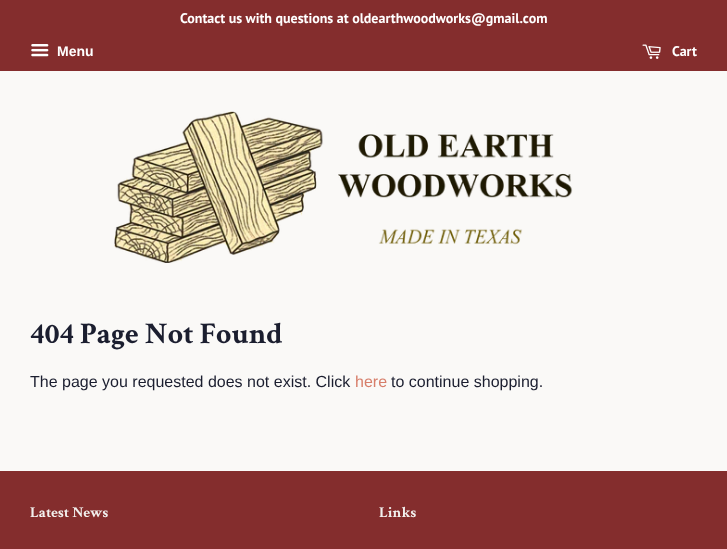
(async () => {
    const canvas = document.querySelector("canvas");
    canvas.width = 727;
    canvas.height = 549;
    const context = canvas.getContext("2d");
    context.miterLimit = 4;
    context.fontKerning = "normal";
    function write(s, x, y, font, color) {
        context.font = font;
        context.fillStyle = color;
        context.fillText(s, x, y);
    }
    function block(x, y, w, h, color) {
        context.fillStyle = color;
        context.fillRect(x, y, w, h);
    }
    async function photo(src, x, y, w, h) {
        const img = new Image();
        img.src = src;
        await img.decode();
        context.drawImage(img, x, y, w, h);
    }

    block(0, 0, 727, 549, "rgb(250, 249, 247)");
    block(0, 0, 727, 71, "rgb(132, 45, 45)");
    write("Contact us with questions at oldearthwoodworks@gmail.com", 180, 23, "bold 14px PT Sans", "rgb(255, 255, 255)");
    await photo("media/1.png", 31, 44, 18, 13);
    write("Menu", 57, 56, "bold 14px Liberation Sans", "rgb(255, 255, 255)");
    await photo("media/2.png", 642, 44, 19, 15);
    write("Cart", 672, 56, "bold 14px PT Sans", "rgb(255, 255, 255)");
    await photo("media/3.png", 114, 111, 459, 152);
    write("404 Page Not Found", 30, 343, "bold 30px Crimson Text", "rgb(27, 30, 47)");
    write("The page you requested does not exist. Click", 30, 387, "16px Liberation Sans", "rgb(27, 30, 47)");
    write("here", 355, 387, "16px Liberation Sans", "rgb(215, 126, 106)");
    write("to continue shopping.", 391, 387, "16px Liberation Sans", "rgb(27, 30, 47)");
    block(0, 471, 727, 78, "rgb(132, 45, 45)");
    write("Latest News", 30, 517, "bold 15px Crimson Text", "rgb(242, 240, 238)");
    write("Links", 379, 517, "bold 15px Crimson Text", "rgb(242, 240, 238)");
})();
